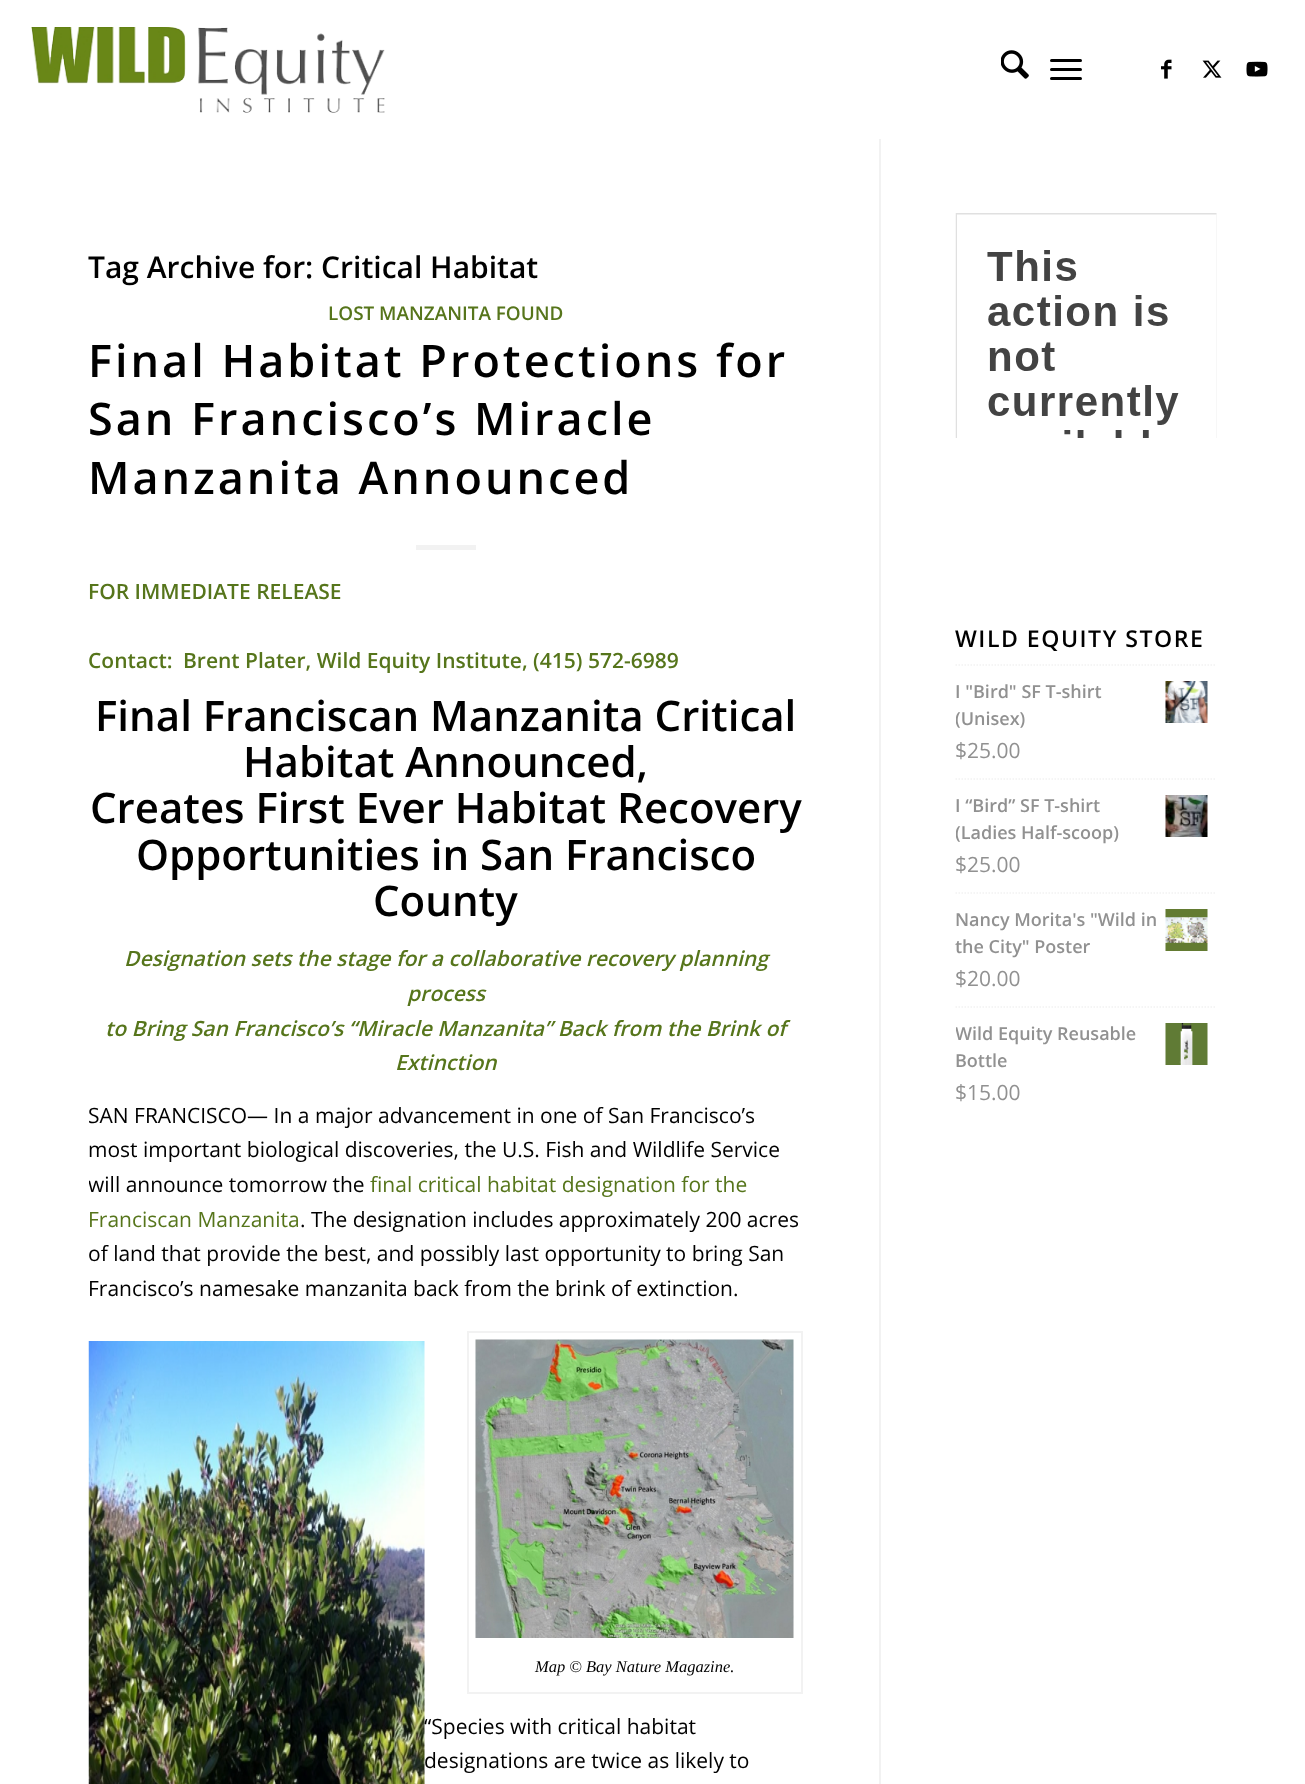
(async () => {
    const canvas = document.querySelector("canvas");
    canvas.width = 1305;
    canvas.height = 1784;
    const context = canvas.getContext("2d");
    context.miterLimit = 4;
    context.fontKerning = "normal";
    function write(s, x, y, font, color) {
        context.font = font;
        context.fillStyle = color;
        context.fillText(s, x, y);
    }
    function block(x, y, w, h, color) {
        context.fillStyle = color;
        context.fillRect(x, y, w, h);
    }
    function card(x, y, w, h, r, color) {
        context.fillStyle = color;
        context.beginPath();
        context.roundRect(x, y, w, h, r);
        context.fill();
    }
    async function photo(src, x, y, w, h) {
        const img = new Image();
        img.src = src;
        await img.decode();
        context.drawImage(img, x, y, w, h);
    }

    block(0, 0, 1305, 1784, "rgb(255, 255, 255)");
    block(879, 138, 2, 1646, "rgb(242, 242, 242)");
    block(879, 138, 2, 1, "rgb(255, 255, 255)");
    await photo("media/1.png", 31, 27, 354, 86);
    await photo("media/2.png", 1001, 50, 28, 29);
    card(1050, 68, 32, 3, 1.5, "rgb(0, 0, 0)");
    card(1050, 59, 32, 3, 1.5, "rgb(0, 0, 0)");
    card(1050, 77, 32, 3, 1.5, "rgb(0, 0, 0)");
    await photo("media/3.png", 1161, 59, 11, 20);
    await photo("media/4.png", 1202, 60, 20, 18);
    await photo("media/5.png", 1246, 61, 22, 16);
    write("Tag Archive for: Critical Habitat", 88, 278, "600 30px Open Sans", "rgb(0, 0, 0)");
    write("LOST MANZANITA FOUND", 328, 320, "600 18.9px Open Sans", "rgb(86, 117, 27)");
    context.letterSpacing = "3px";
    write("Final Habitat Protections for", 88, 377, "600 45px Open Sans", "rgb(0, 0, 0)");
    write("San Francisco’s Miracle", 88, 435, "600 45px Open Sans", "rgb(0, 0, 0)");
    write("Manzanita Announced", 88, 494, "600 45px Open Sans", "rgb(0, 0, 0)");
    block(416, 545, 60, 5, "rgb(242, 242, 242)");
    context.letterSpacing = "0px";
    write("FOR IMMEDIATE RELEASE", 88, 599, "600 21px Open Sans", "rgb(86, 117, 27)");
    write("Contact:", 88, 668, "600 21px Open Sans", "rgb(86, 117, 27)");
    write("Brent Plater, Wild Equity Institute, (415) 572-6989", 183, 668, "600 21px Open Sans", "rgb(86, 117, 27)");
    write("Final Franciscan Manzanita Critical", 95, 731, "600 42px Open Sans", "rgb(0, 0, 0)");
    write("Habitat Announced,", 243, 777, "600 42px Open Sans", "rgb(0, 0, 0)");
    write("Creates First Ever Habitat Recovery", 90, 823, "600 42px Open Sans", "rgb(0, 0, 0)");
    write("Opportunities in San Francisco", 136, 870, "600 42px Open Sans", "rgb(0, 0, 0)");
    write("County", 373, 916, "600 42px Open Sans", "rgb(0, 0, 0)");
    write("Designation sets the stage for a collaborative recovery planning", 124, 966, "italic 600 21px Open Sans", "rgb(86, 117, 27)");
    write("process", 407, 1001, "italic 600 21px Open Sans", "rgb(86, 117, 27)");
    write("to Bring San Francisco’s “Miracle Manzanita” Back from the Brink of", 105, 1036, "italic 600 21px Open Sans", "rgb(86, 117, 27)");
    write("Extinction", 395, 1070, "italic 600 21px Open Sans", "rgb(86, 117, 27)");
    write("SAN FRANCISCO— In a major advancement in one of San Francisco’s", 88, 1123, "21px Open Sans", "rgb(0, 0, 0)");
    write("most important biological discoveries, the U.S. Fish and Wildlife Service", 88, 1157, "21px Open Sans", "rgb(0, 0, 0)");
    context.save();
    context.beginPath();
    context.rect(89, 296, 790, 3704);
    context.clip();
    write("will announce tomorrow the", 88, 1192, "21px Open Sans", "rgb(0, 0, 0)");
    context.restore();
    write("final critical habitat designation for the", 370, 1192, "21px Open Sans", "rgb(86, 117, 27)");
    write("Franciscan Manzanita", 88, 1227, "21px Open Sans", "rgb(86, 117, 27)");
    write(". The designation includes approximately 200 acres", 300, 1227, "21px Open Sans", "rgb(0, 0, 0)");
    write("of land that provide the best, and possibly last opportunity to bring San", 88, 1261, "21px Open Sans", "rgb(0, 0, 0)");
    write("Francisco’s namesake manzanita back from the brink of extinction.", 88, 1296, "21px Open Sans", "rgb(0, 0, 0)");
    write("“Species with critical habitat", 424, 1734, "21px Open Sans", "rgb(0, 0, 0)");
    await photo("media/6.png", 88, 1341, 337, 443);
    context.strokeStyle = "rgb(242, 242, 242)";
    context.lineWidth = 2;
    context.strokeRect(468, 1332, 334, 361);
    await photo("media/7.png", 475, 1339, 319, 299);
    write("Map © Bay Nature Magazine.", 535, 1672, "italic 16.5px Liberation Serif", "rgb(0, 0, 0)");
    write("designations are twice as likely to", 424, 1768, "21px Open Sans", "rgb(0, 0, 0)");
    await photo("media/8.png", 955, 213, 262, 225);
    context.letterSpacing = "1.5px";
    write("WILD EQUITY STORE", 955, 647, "600 23.1px Open Sans", "rgb(0, 0, 0)");
    context.beginPath();
    context.moveTo(955.5, 665);
    context.lineTo(1216.5, 665);
    context.lineWidth = 1.5;
    context.setLineDash([1.5, 1.5]);
    context.stroke();
    context.letterSpacing = "0px";
    write("I \"Bird\" SF T-shirt", 955, 698, "600 18px Open Sans", "rgb(145, 145, 145)");
    await photo("media/9.png", 1165, 681, 43, 42);
    context.save();
    context.beginPath();
    context.rect(956, 678, 261, 54);
    context.clip();
    write("(Unisex)", 955, 725, "600 18px Open Sans", "rgb(145, 145, 145)");
    context.restore();
    write("$25.00", 955, 758, "21px Open Sans", "rgb(145, 145, 145)");
    context.beginPath();
    context.moveTo(955.5, 779);
    context.lineTo(1216.5, 779);
    context.stroke();
    write("I “Bird” SF T-shirt", 955, 812, "600 18px Open Sans", "rgb(145, 145, 145)");
    await photo("media/10.png", 1165, 795, 43, 42);
    context.save();
    context.beginPath();
    context.rect(956, 792, 261, 54);
    context.clip();
    write("(Ladies Half-scoop)", 955, 839, "600 18px Open Sans", "rgb(145, 145, 145)");
    context.restore();
    write("$25.00", 955, 872, "21px Open Sans", "rgb(145, 145, 145)");
    context.beginPath();
    context.moveTo(955.5, 893);
    context.lineTo(1216.5, 893);
    context.stroke();
    write("Nancy Morita's \"Wild in", 955, 926, "600 18px Open Sans", "rgb(145, 145, 145)");
    await photo("media/11.png", 1165, 909, 43, 42);
    write("the City\" Poster", 955, 953, "600 18px Open Sans", "rgb(145, 145, 145)");
    write("$20.00", 955, 986, "21px Open Sans", "rgb(145, 145, 145)");
    context.beginPath();
    context.moveTo(955.5, 1007);
    context.lineTo(1216.5, 1007);
    context.stroke();
    context.save();
    context.beginPath();
    context.rect(956, 1020, 261, 54);
    context.clip();
    write("Wild Equity Reusable", 955, 1040, "600 18px Open Sans", "rgb(145, 145, 145)");
    context.restore();
    await photo("media/12.png", 1165, 1023, 43, 42);
    write("Bottle", 955, 1067, "600 18px Open Sans", "rgb(145, 145, 145)");
    write("$15.00", 955, 1100, "21px Open Sans", "rgb(145, 145, 145)");
})();
